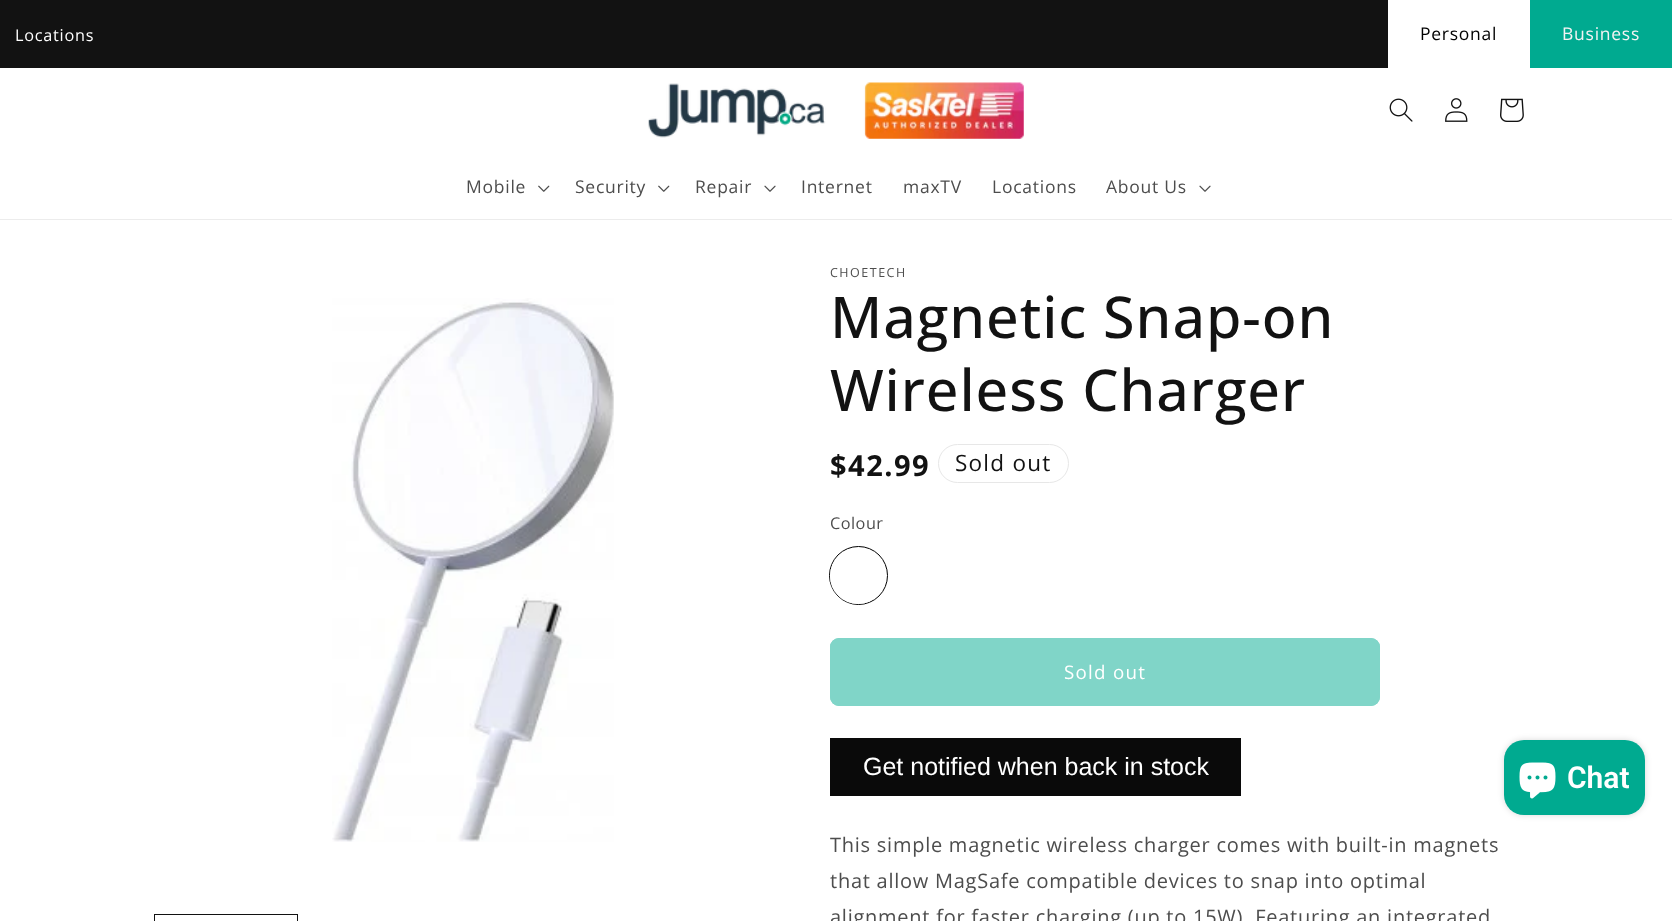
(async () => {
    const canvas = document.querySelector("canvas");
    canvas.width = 1672;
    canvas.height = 921;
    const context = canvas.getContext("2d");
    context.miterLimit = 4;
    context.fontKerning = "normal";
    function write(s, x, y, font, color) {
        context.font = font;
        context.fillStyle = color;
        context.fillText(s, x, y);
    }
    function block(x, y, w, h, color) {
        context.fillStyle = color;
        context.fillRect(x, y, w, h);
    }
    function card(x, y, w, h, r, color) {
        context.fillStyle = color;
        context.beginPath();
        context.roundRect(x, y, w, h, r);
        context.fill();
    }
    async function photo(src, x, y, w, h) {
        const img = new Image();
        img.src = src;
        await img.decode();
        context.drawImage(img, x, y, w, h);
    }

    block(0, 0, 1672, 921, "rgb(255, 255, 255)");
    block(0, 0, 1388, 68, "rgb(18, 18, 18)");
    context.letterSpacing = "0.75px";
    write("Locations", 15, 41, "16.25px Open Sans", "rgb(255, 255, 255)");
    write("Personal", 1420, 40, "17.5px Open Sans", "rgb(0, 0, 0)");
    block(1530, 0, 142, 68, "rgb(0, 170, 144)");
    write("Business", 1562, 40, "17.5px Open Sans", "rgb(243, 243, 243)");
    block(0, 219, 1672, 1, "rgb(236, 236, 236)");
    await photo("media/1.png", 648, 82, 376, 57);
    await photo("media/2.png", 1389, 98, 24, 24);
    await photo("media/3.png", 1445, 98, 23, 24);
    await photo("media/4.png", 1500, 98, 24, 24);
    write("Mobile", 466, 193, "17.5px Open Sans", "rgb(77, 77, 77)");
    await photo("media/5.png", 538, 185, 12, 7);
    write("Security", 575, 193, "17.5px Open Sans", "rgb(77, 77, 77)");
    await photo("media/5.png", 658, 185, 12, 7);
    write("Repair", 695, 193, "17.5px Open Sans", "rgb(77, 77, 77)");
    await photo("media/6.png", 764, 185, 12, 7);
    write("Internet", 801, 193, "17.5px Open Sans", "rgb(77, 77, 77)");
    write("maxTV", 903, 193, "17.5px Open Sans", "rgb(77, 77, 77)");
    write("Locations", 992, 193, "17.5px Open Sans", "rgb(77, 77, 77)");
    write("About Us", 1106, 193, "17.5px Open Sans", "rgb(77, 77, 77)");
    await photo("media/6.png", 1199, 185, 12, 7);
    await photo("media/7.png", 332, 298, 282, 544);
    context.strokeStyle = "rgb(18, 18, 18)";
    context.strokeRect(154.5, 914.5, 143, 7);
    context.letterSpacing = "1.5px";
    write("CHOETECH", 830, 277, "12.5px Open Sans", "rgb(77, 77, 77)");
    context.letterSpacing = "0.9px";
    write("Magnetic Snap-on", 830, 338, "500 57.5px Open Sans", "rgb(18, 18, 18)");
    write("Wireless Charger", 830, 411, "500 57.5px Open Sans", "rgb(18, 18, 18)");
    context.letterSpacing = "1.5px";
    write("$42.99", 830, 476, "bold 29px Open Sans", "rgb(18, 18, 18)");
    context.beginPath();
    context.roundRect(938.5, 444.5, 130, 38, 19);
    context.strokeStyle = "rgb(231, 231, 231)";
    context.stroke();
    context.letterSpacing = "1.25px";
    write("Sold out", 955, 471, "22.5px Open Sans", "rgb(18, 18, 18)");
    context.letterSpacing = "0.5px";
    write("Colour", 830, 529, "16.25px Open Sans", "rgb(77, 77, 77)");
    context.beginPath();
    context.arc(858.5, 575.5, 29, 0, Math.PI * 2);
    context.strokeStyle = "rgb(0, 0, 0)";
    context.stroke();
    context.fillStyle = "rgb(255, 255, 255)";
    context.beginPath();
    context.arc(858, 576, 26.5, 0, Math.PI * 2);
    context.fill();
    context.strokeStyle = "rgb(255, 255, 255)";
    context.lineWidth = 3;
    context.stroke();
    card(830, 638, 550, 68, 9, "rgb(128, 213, 200)");
    context.beginPath();
    context.roundRect(833, 641, 544, 62, 6);
    context.strokeStyle = "rgb(128, 213, 200)";
    context.lineWidth = 6;
    context.stroke();
    context.letterSpacing = "1.25px";
    write("Sold out", 1064, 679, "18.75px Open Sans", "rgb(255, 255, 255)");
    block(830, 738, 411, 58, "rgb(10, 10, 10)");
    context.letterSpacing = "0px";
    write("Get notified when back in stock", 863, 775, "25px Liberation Sans", "rgb(255, 255, 255)");
    context.letterSpacing = "0.75px";
    write("This simple magnetic wireless charger comes with built-in magnets", 830, 852, "20px Open Sans", "rgb(77, 77, 77)");
    write("that allow MagSafe compatible devices to snap into optimal", 830, 888, "20px Open Sans", "rgb(77, 77, 77)");
    write("alignment for faster charging (up to 15W). Featuring an integrated", 830, 924, "20px Open Sans", "rgb(77, 77, 77)");
    context.fillStyle = "rgba(0, 0, 0, 0.15)";
    context.filter = "blur(3px)";
    context.beginPath();
    context.roundRect(1504, 740, 141, 75, 20);
    context.fill();
    context.filter = "none";
    card(1504, 740, 141, 75, 20, "rgb(0, 170, 144)");
    await photo("media/8.png", 1519, 762, 37, 37);
    context.letterSpacing = "0px";
    write("Chat", 1567, 788, "600 30px Roboto", "rgb(255, 255, 255)");
})();
